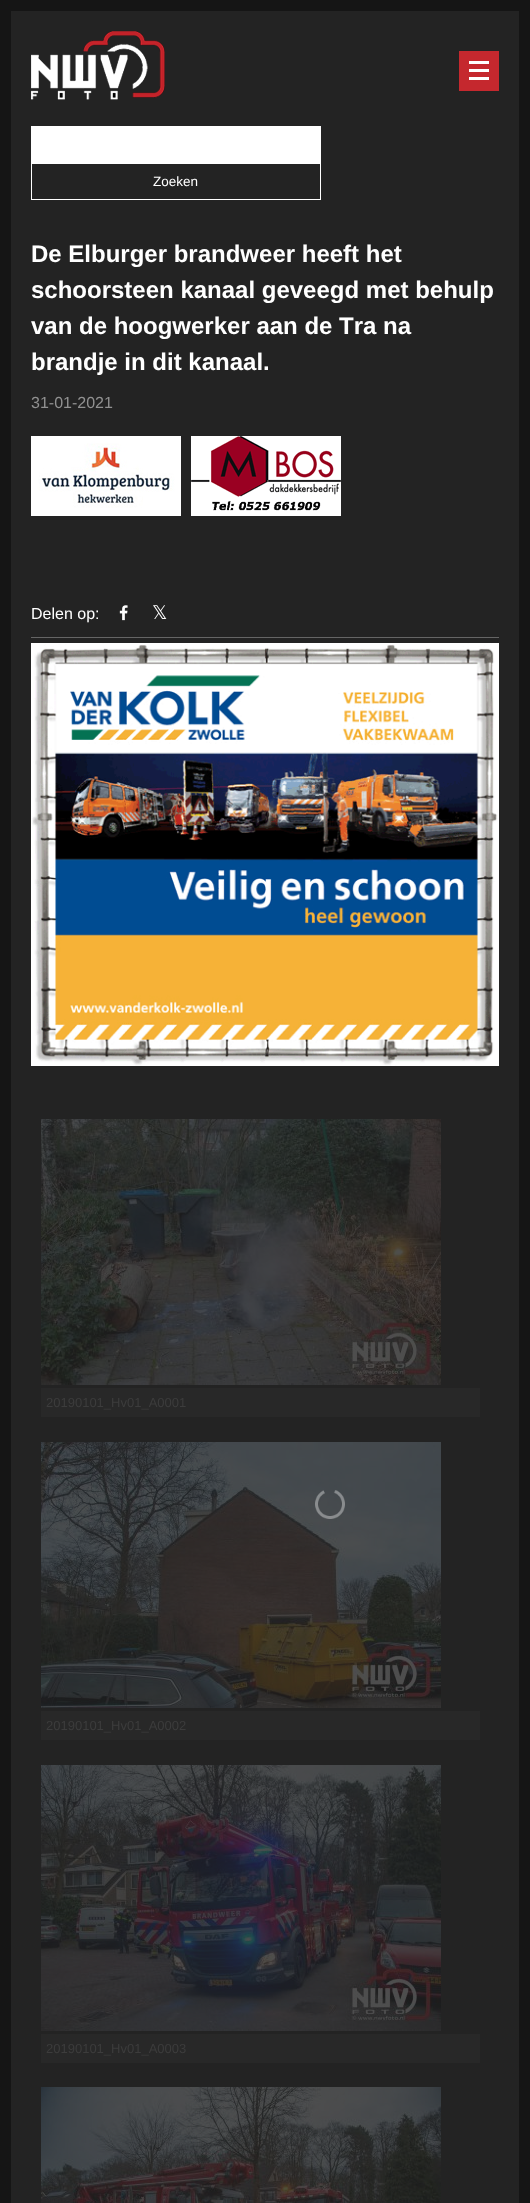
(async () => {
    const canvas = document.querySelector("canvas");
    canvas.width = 530;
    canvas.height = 2203;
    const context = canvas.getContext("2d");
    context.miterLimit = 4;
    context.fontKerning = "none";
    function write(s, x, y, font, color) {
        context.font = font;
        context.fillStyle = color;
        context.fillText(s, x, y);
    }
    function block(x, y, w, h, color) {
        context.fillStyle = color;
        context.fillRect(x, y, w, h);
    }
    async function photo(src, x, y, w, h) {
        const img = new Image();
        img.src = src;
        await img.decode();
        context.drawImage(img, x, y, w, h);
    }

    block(0, 0, 530, 2203, "rgb(21, 21, 21)");
    block(11, 11, 508, 2192, "rgb(35, 35, 35)");
    await photo("media/1.png", 31, 31, 134, 69);
    block(459, 51, 40, 40, "rgb(197, 40, 46)");
    block(469, 61, 20, 3, "rgb(255, 255, 255)");
    block(469, 69, 20, 3, "rgb(255, 255, 255)");
    block(469, 77, 20, 3, "rgb(255, 255, 255)");
    block(31, 126, 290, 37, "rgb(255, 255, 255)");
    context.strokeStyle = "rgb(255, 255, 255)";
    context.strokeRect(31.5, 163.5, 289, 36);
    write("Zoeken", 153, 186, "13.5px Liberation Sans", "rgb(255, 255, 255)");
    write("De Elburger brandweer heeft het", 31, 262, "bold 24px Arimo", "rgb(255, 255, 255)");
    write("schoorsteen kanaal geveegd met behulp", 31, 298, "bold 24px Arimo", "rgb(255, 255, 255)");
    write("van de hoogwerker aan de Tra na", 31, 334, "bold 24px Arimo", "rgb(255, 255, 255)");
    write("brandje in dit kanaal.", 31, 370, "bold 24px Arimo", "rgb(255, 255, 255)");
    write("31-01-2021", 31, 408, "16px Arimo", "rgb(145, 145, 145)");
    await photo("media/2.png", 31, 436, 150, 80);
    await photo("media/3.png", 191, 436, 150, 80);
    block(31, 637, 468, 1, "rgb(101, 101, 101)");
    write("Delen op:", 31, 619, "16px Arimo", "rgb(255, 255, 255)");
    await photo("media/4.png", 119, 605, 9, 16);
    write("𝕏", 152, 619, "19px DejaVu Sans", "rgb(255, 255, 255)");
    await photo("media/5.png", 31, 643, 468, 423);
    await photo("media/6.png", 41, 1119, 400, 266);
    block(41, 1388, 439, 29, "rgb(40, 40, 40)");
    write("20190101_Hv01_A0001", 46, 1407, "13px Arimo", "rgb(60, 60, 60)");
    await photo("media/7.png", 41, 1442, 400, 266);
    block(41, 1711, 439, 29, "rgb(40, 40, 40)");
    write("20190101_Hv01_A0002", 46, 1730, "13px Arimo", "rgb(60, 60, 60)");
    await photo("media/8.png", 41, 1765, 400, 266);
    block(41, 2034, 439, 29, "rgb(40, 40, 40)");
    write("20190101_Hv01_A0003", 46, 2053, "13px Arimo", "rgb(60, 60, 60)");
    await photo("media/9.png", 41, 2087, 400, 116);
    await photo("media/10.png", 315, 1490, 30, 29);
})();
